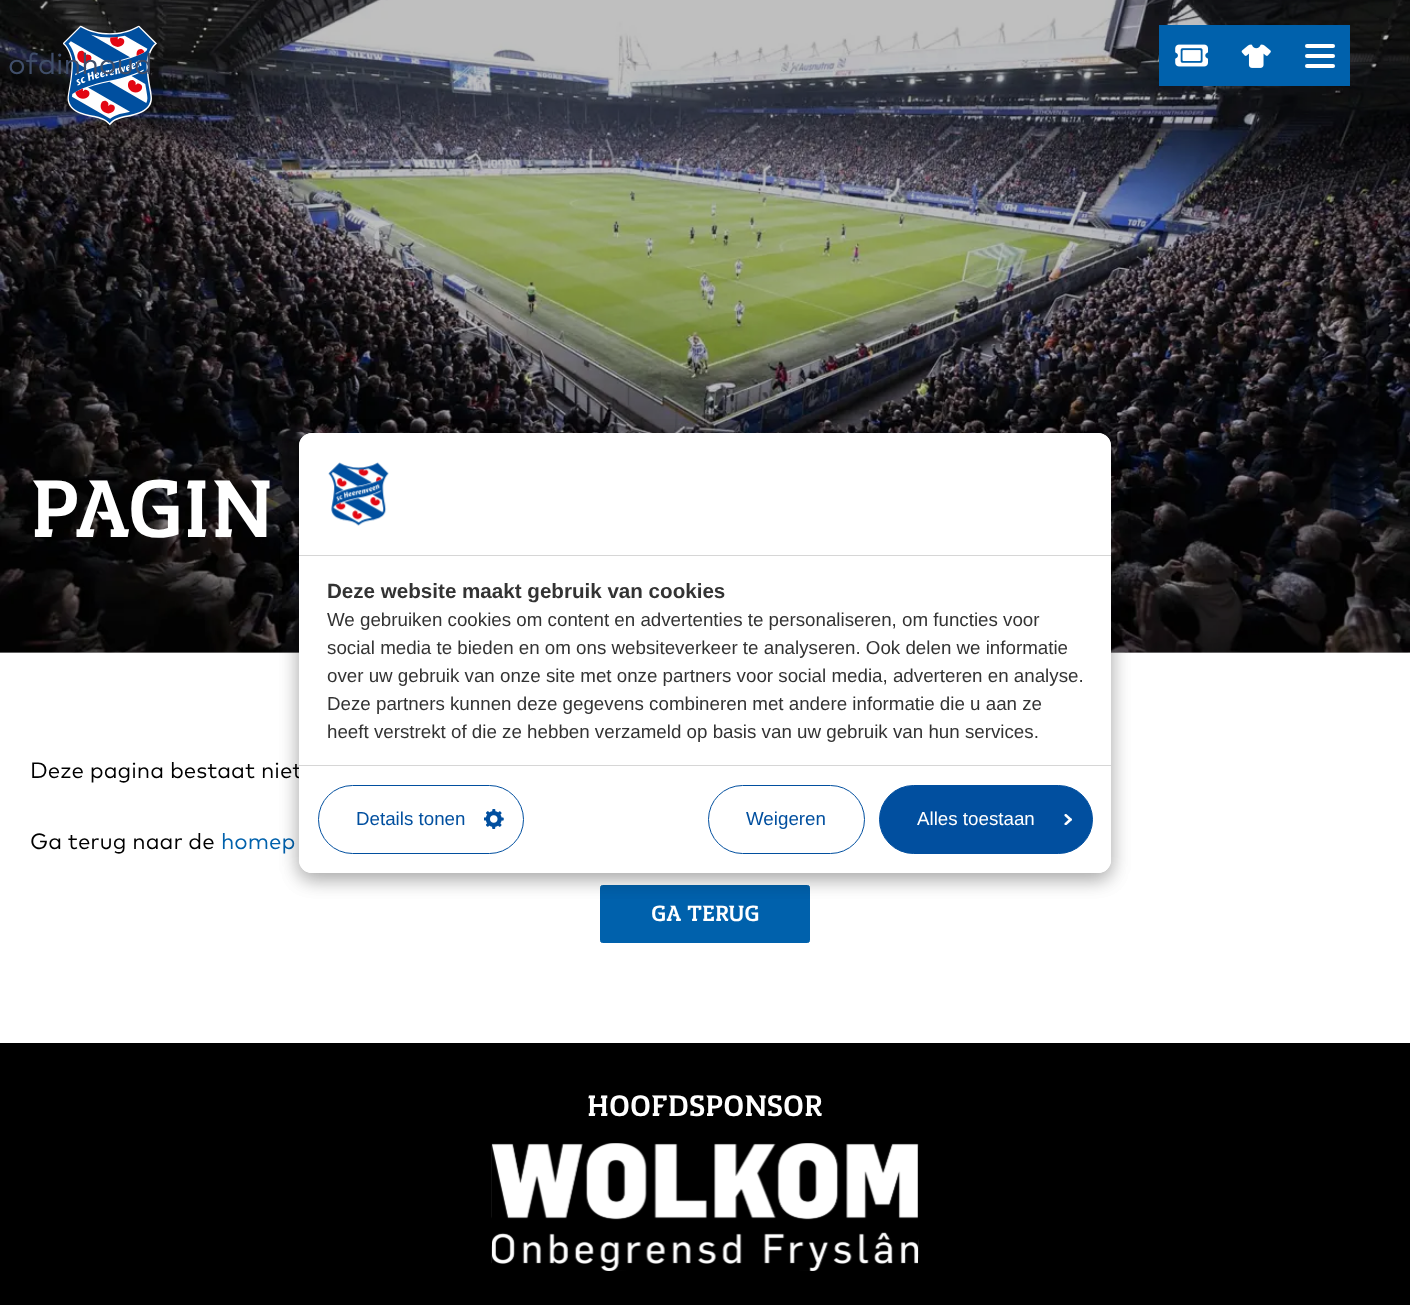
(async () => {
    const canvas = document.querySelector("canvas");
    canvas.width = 1410;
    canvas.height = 1305;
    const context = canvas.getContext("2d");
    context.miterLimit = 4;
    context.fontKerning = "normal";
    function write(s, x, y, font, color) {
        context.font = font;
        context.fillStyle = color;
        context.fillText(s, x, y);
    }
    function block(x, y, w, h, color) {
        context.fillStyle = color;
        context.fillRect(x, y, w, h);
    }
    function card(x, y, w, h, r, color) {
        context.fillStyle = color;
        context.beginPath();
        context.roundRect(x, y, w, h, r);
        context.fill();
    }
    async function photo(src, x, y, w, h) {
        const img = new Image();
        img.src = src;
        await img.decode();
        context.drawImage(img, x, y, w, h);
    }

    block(0, 0, 1410, 1305, "rgb(255, 255, 255)");
    block(0, 652, 1410, 1, "rgb(191, 191, 191)");
    await photo("media/4.png", 0, 0, 1410, 653);
    await photo("media/1.png", 63, 25, 94, 100);
    block(1159, 25, 191, 61, "rgb(0, 97, 172)");
    await photo("media/2.png", 1175, 44, 33, 23);
    await photo("media/3.png", 1241, 44, 30, 24);
    card(1305, 44, 30, 4, 2, "rgb(255, 255, 255)");
    card(1305, 54, 30, 4, 2, "rgb(255, 255, 255)");
    card(1305, 64, 30, 4, 2, "rgb(255, 255, 255)");
    write("ofdinhoud", 8, 74, "29.5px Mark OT", "rgb(64, 78, 105)");
    write("PAGIN", 30, 537, "bold 82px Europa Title", "rgb(255, 255, 255)");
    write("Deze pagina bestaat niet", 30, 778, "22.25px Mark OT", "rgb(0, 0, 0)");
    write("Ga terug naar de", 30, 849, "22.25px Mark OT", "rgb(0, 0, 0)");
    write("homep", 221, 849, "22.25px Mark OT", "rgb(0, 97, 172)");
    context.beginPath();
    context.roundRect(600.5, 885.5, 209, 57, 2);
    context.fill();
    context.strokeStyle = "rgb(0, 97, 172)";
    context.stroke();
    write("GA TERUG", 651, 921, "bold 22.25px Europa Title", "rgb(255, 255, 255)");
    block(0, 1043, 1410, 262, "rgb(0, 0, 0)");
    write("HOOFDSPONSOR", 587, 1116, "bold 29.75px Europa Title", "rgb(255, 255, 255)");
    await photo("media/5.png", 491, 1143, 428, 128);
    context.fillStyle = "rgba(0, 0, 0, 0.19)";
    context.filter = "blur(9.5px)";
    context.beginPath();
    context.roundRect(299, 439, 812, 440, 13);
    context.fill();
    context.filter = "none";
    context.fillStyle = "rgba(0, 0, 0, 0.2)";
    context.filter = "blur(9.5px)";
    context.beginPath();
    context.roundRect(299, 439, 812, 440, 13);
    context.fill();
    context.filter = "none";
    card(299, 433, 812, 440, 13, "rgb(255, 255, 255)");
    context.beginPath();
    context.roundRect(299, 433, 812, 123, [13, 13, 0, 0]);
    context.fill();
    block(299, 555, 812, 1, "rgb(214, 214, 214)");
    await photo("media/6.png", 328, 462, 61, 64);
    write("Deze website maakt gebruik van cookies", 327, 598, "bold 20.6px Liberation Sans", "rgb(51, 51, 51)");
    write("We gebruiken cookies om content en advertenties te personaliseren, om functies voor", 327, 626, "18.75px Liberation Sans", "rgb(51, 51, 51)");
    write("social media te bieden en om ons websiteverkeer te analyseren. Ook delen we informatie", 327, 654, "18.75px Liberation Sans", "rgb(51, 51, 51)");
    write("over uw gebruik van onze site met onze partners voor social media, adverteren en analyse.", 327, 682, "18.75px Liberation Sans", "rgb(51, 51, 51)");
    write("Deze partners kunnen deze gegevens combineren met andere informatie die u aan ze", 327, 710, "18.75px Liberation Sans", "rgb(51, 51, 51)");
    write("heeft verstrekt of die ze hebben verzameld op basis van uw gebruik van hun services.", 327, 738, "18.75px Liberation Sans", "rgb(51, 51, 51)");
    context.fillStyle = "rgb(255, 255, 255)";
    context.beginPath();
    context.roundRect(299, 765, 812, 108, [0, 0, 13, 13]);
    context.fill();
    block(299, 765, 812, 1, "rgb(214, 214, 214)");
    context.beginPath();
    context.roundRect(318.5, 785.5, 205, 68, 34);
    context.strokeStyle = "rgb(1, 79, 159)";
    context.stroke();
    write("Details tonen", 356, 825, "18.75px Liberation Sans", "rgb(1, 79, 159)");
    await photo("media/7.png", 484, 809, 20, 20);
    context.beginPath();
    context.roundRect(708.5, 785.5, 156, 68, 34);
    context.stroke();
    write("Weigeren", 746, 825, "18.75px Liberation Sans", "rgb(1, 79, 159)");
    context.beginPath();
    context.roundRect(879.5, 785.5, 213, 68, 34);
    context.fill();
    context.stroke();
    write("Alles toestaan", 917, 825, "18.75px Liberation Sans", "rgb(255, 255, 255)");
    await photo("media/8.png", 1064, 814, 8, 11);
})();
